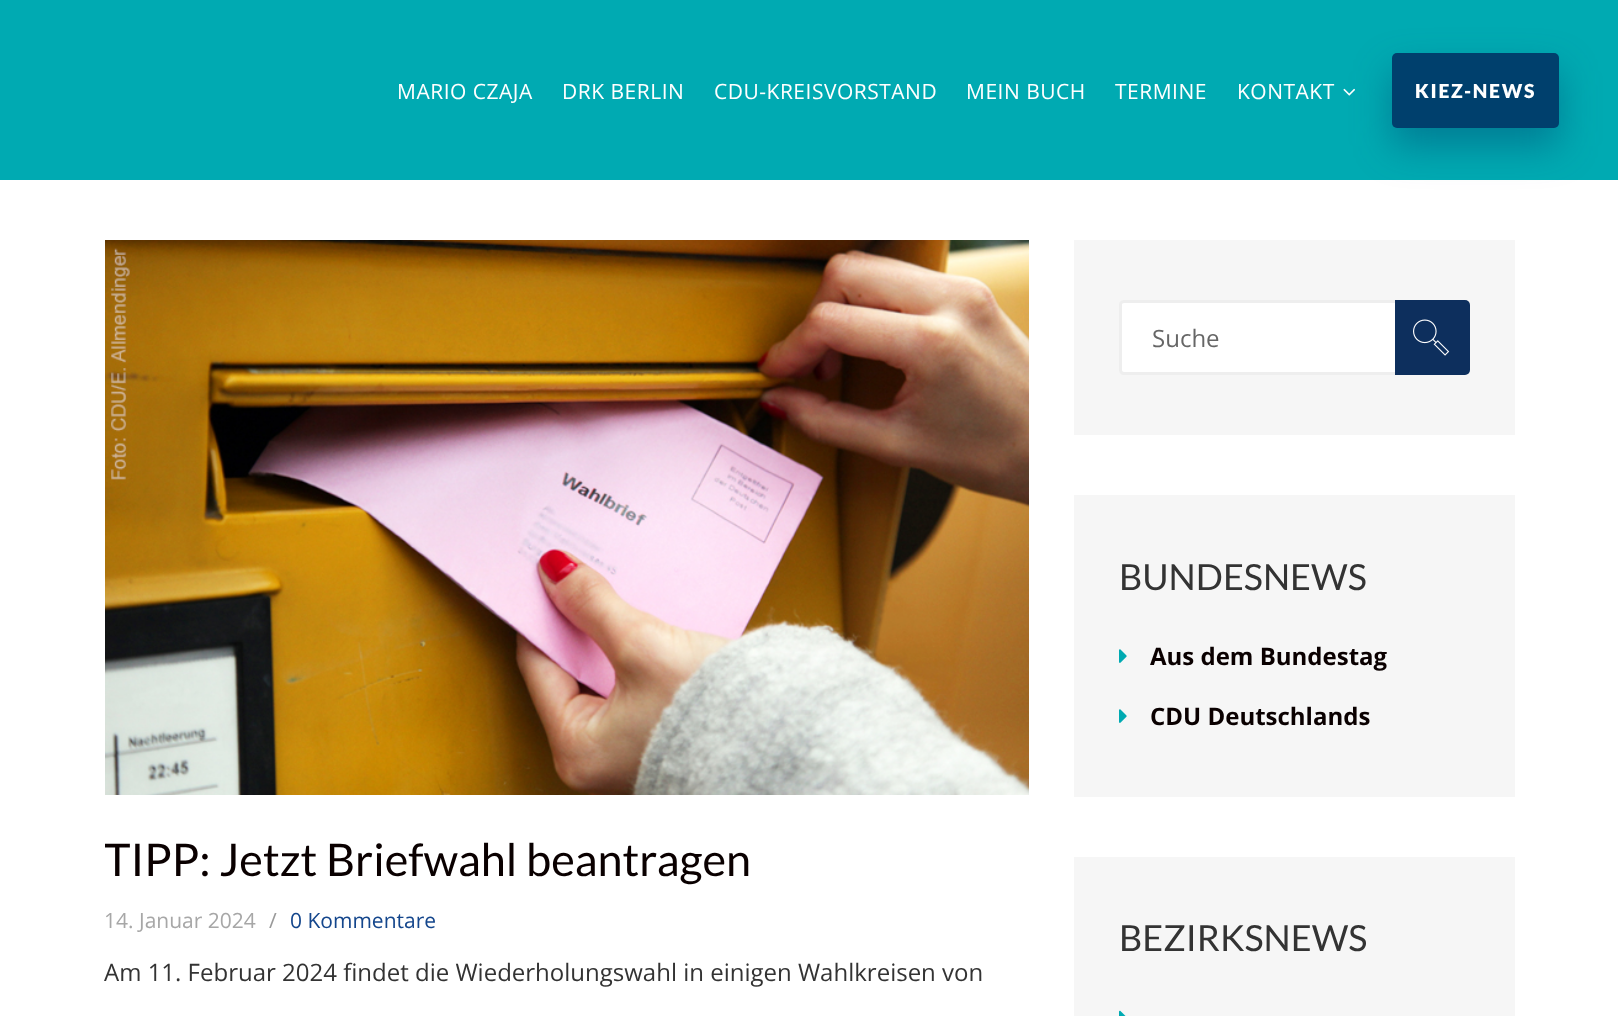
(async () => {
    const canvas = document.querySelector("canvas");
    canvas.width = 1618;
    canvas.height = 1016;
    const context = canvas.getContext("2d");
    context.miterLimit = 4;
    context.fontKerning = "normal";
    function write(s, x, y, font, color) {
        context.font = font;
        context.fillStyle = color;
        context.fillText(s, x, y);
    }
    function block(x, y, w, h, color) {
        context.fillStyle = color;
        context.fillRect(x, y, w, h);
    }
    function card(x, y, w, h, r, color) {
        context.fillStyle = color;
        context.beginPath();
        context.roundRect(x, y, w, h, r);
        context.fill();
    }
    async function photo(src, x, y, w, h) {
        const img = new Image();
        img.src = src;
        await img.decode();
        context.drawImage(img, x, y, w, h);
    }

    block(0, 0, 1618, 1016, "rgb(255, 255, 255)");
    block(0, 0, 1618, 180, "rgb(0, 170, 178)");
    context.letterSpacing = "0.5px";
    write("MARIO CZAJA", 397, 99, "21px Open Sans", "rgb(255, 255, 255)");
    write("DRK BERLIN", 562, 99, "21px Open Sans", "rgb(255, 255, 255)");
    write("CDU-KREISVORSTAND", 714, 99, "21px Open Sans", "rgb(255, 255, 255)");
    write("MEIN BUCH", 966, 99, "21px Open Sans", "rgb(255, 255, 255)");
    write("TERMINE", 1115, 99, "21px Open Sans", "rgb(255, 255, 255)");
    write("KONTAKT", 1237, 99, "21px Open Sans", "rgb(255, 255, 255)");
    context.fillStyle = "rgba(0, 64, 109, 0.43)";
    context.filter = "blur(19px)";
    context.beginPath();
    context.roundRect(1392, 71, 167, 75, 5);
    context.fill();
    context.filter = "none";
    await photo("media/1.png", 1343, 88, 12, 8);
    card(1392, 53, 167, 75, 5, "rgb(0, 64, 109)");
    context.letterSpacing = "1.75px";
    write("KIEZ-NEWS", 1415, 98, "900 19.25px Lato", "rgb(255, 255, 255)");
    await photo("media/2.png", 105, 240, 924, 555);
    context.save();
    context.beginPath();
    context.rect(105, 833, 924, 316);
    context.clip();
    context.letterSpacing = "0px";
    write("TIPP: Jetzt Briefwahl beantragen", 104, 876, "45px Lato", "rgb(10, 0, 0)");
    context.restore();
    context.letterSpacing = "0px";
    write("14. Januar 2024", 104, 928, "21px Open Sans", "rgb(167, 167, 167)");
    write("/", 269, 928, "21px Open Sans", "rgb(153, 153, 153)");
    write("0 Kommentare", 290, 928, "21px Open Sans", "rgb(20, 70, 140)");
    write("Am 11. Februar 2024 findet die Wiederholungswahl in einigen Wahlkreisen von", 104, 981, "24px Open Sans", "rgb(51, 51, 51)");
    block(1074, 240, 441, 195, "rgb(246, 246, 246)");
    context.fillStyle = "rgb(255, 255, 255)";
    context.beginPath();
    context.roundRect(1119, 300, 276, 75, [5, 0, 0, 5]);
    context.fill();
    context.fillStyle = "rgb(238, 238, 238)";
    context.beginPath();
    context.moveTo(1124, 300);
    context.lineTo(1395, 300);
    context.lineTo(1395, 375);
    context.lineTo(1124, 375);
    context.bezierCurveTo(1121, 375, 1119, 373, 1119, 370);
    context.lineTo(1119, 304);
    context.bezierCurveTo(1119, 302, 1121, 300, 1124, 300);
    context.closePath();
    context.moveTo(1124, 303);
    context.lineTo(1395, 303);
    context.lineTo(1395, 372);
    context.lineTo(1124, 372);
    context.bezierCurveTo(1123, 372, 1122, 371, 1122, 370);
    context.lineTo(1122, 304);
    context.bezierCurveTo(1122, 304, 1123, 303, 1124, 303);
    context.closePath();
    context.fill("evenodd");
    write("Suche", 1152, 347, "24px Open Sans", "rgb(102, 102, 102)");
    context.fillStyle = "rgb(13, 47, 93)";
    context.beginPath();
    context.roundRect(1395, 300, 75, 75, [0, 5, 5, 0]);
    context.fill();
    await photo("media/3.png", 1413, 319, 37, 37);
    block(1074, 495, 441, 302, "rgb(246, 246, 246)");
    write("BUNDESNEWS", 1119, 590, "36px Lato", "rgb(51, 51, 51)");
    await photo("media/4.png", 1119, 649, 8, 14);
    write("Aus dem Bundestag", 1150, 665, "bold 24px Open Sans", "rgb(10, 0, 0)");
    await photo("media/4.png", 1119, 709, 8, 14);
    write("CDU Deutschlands", 1150, 725, "bold 24px Open Sans", "rgb(10, 0, 0)");
    block(1074, 857, 441, 159, "rgb(246, 246, 246)");
    write("BEZIRKSNEWS", 1119, 951, "36px Lato", "rgb(51, 51, 51)");
    await photo("media/5.png", 1119, 1010, 7, 6);
})();
